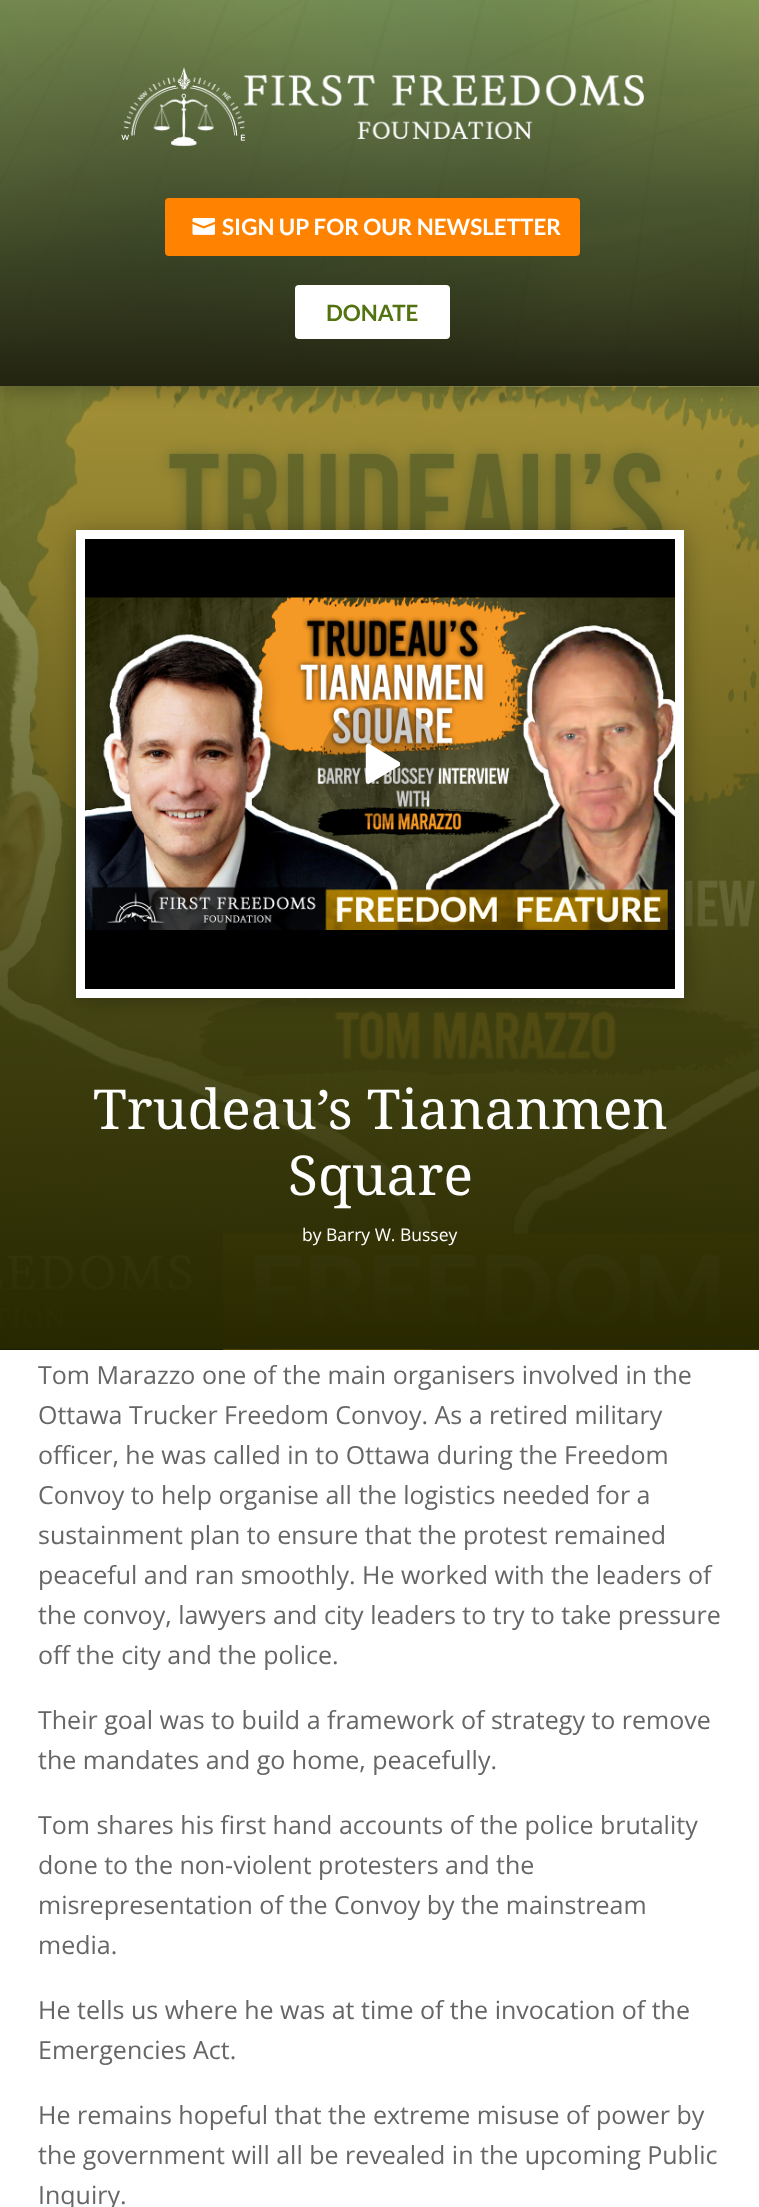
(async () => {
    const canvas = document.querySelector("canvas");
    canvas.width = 759;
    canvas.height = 2207;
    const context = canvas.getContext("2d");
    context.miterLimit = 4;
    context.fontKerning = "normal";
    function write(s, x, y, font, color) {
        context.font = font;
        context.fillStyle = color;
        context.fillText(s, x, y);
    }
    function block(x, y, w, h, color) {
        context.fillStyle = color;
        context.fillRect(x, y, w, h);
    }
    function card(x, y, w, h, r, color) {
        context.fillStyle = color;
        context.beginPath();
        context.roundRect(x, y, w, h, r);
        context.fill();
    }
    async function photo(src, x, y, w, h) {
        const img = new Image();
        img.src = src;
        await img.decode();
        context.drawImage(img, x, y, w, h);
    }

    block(0, 0, 759, 2207, "rgb(255, 255, 255)");
    await photo("media/4.png", 0, 386, 759, 964);
    context.fillStyle = "rgba(0, 0, 0, 0.3)";
    context.filter = "blur(11px)";
    context.beginPath();
    context.rect(0, 3, 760, 386);
    context.fill();
    context.filter = "none";
    await photo("media/1.png", 0, 0, 759, 387);
    await photo("media/2.png", 121, 67, 523, 80);
    card(165, 198, 415, 58, 4, "rgb(255, 131, 0)");
    await photo("media/3.png", 192, 218, 23, 17);
    write("SIGN UP FOR OUR NEWSLETTER", 222, 235, "bold 22.5px Lato", "rgb(255, 255, 255)");
    card(295, 285, 155, 54, 4, "rgb(255, 255, 255)");
    write("DONATE", 326, 321, "bold 22.5px Lato", "rgb(83, 114, 16)");
    context.fillStyle = "rgba(0, 0, 0, 0.3)";
    context.filter = "blur(11px)";
    context.beginPath();
    context.rect(76, 533, 608, 467);
    context.fill();
    context.filter = "none";
    context.strokeStyle = "rgb(255, 255, 255)";
    context.lineWidth = 9;
    context.strokeRect(80.5, 534.5, 599, 459);
    block(85, 539, 590, 450, "rgb(0, 0, 0)");
    await photo("media/5.png", 85, 597, 590, 333);
    context.fillStyle = "rgba(0, 0, 0, 0.2)";
    context.beginPath();
    context.arc(380, 764, 60, 0, Math.PI * 2);
    context.fill();
    context.fillStyle = "rgb(255, 255, 255)";
    context.beginPath();
    context.moveTo(397.5, 764);
    context.lineTo(368.5, 746.5);
    context.lineTo(368.5, 781);
    context.closePath();
    context.fill();
    context.save();
    context.beginPath();
    context.rect(360, 744, 40, 40);
    context.clip();
    context.beginPath();
    context.moveTo(397.5, 764);
    context.lineTo(368.5, 746.5);
    context.lineTo(368.5, 781);
    context.closePath();
    context.lineWidth = 5.5;
    context.lineJoin = "round";
    context.stroke();
    context.restore();
    write("Trudeau’s Tiananmen", 93, 1129, "55px Noto Serif", "rgb(255, 255, 255)");
    write("Square", 288, 1195, "55px Noto Serif", "rgb(255, 255, 255)");
    write("by Barry W. Bussey", 302, 1241, "17.5px Open Sans", "rgb(255, 255, 255)");
    write("Tom Marazzo one of the main organisers involved in the", 38, 1384, "25px Open Sans", "rgb(102, 102, 102)");
    write("Ottawa Trucker Freedom Convoy. As a retired military", 38, 1424, "25px Open Sans", "rgb(102, 102, 102)");
    write("officer, he was called in to Ottawa during the Freedom", 38, 1464, "25px Open Sans", "rgb(102, 102, 102)");
    write("Convoy to help organise all the logistics needed for a", 38, 1504, "25px Open Sans", "rgb(102, 102, 102)");
    write("sustainment plan to ensure that the protest remained", 38, 1544, "25px Open Sans", "rgb(102, 102, 102)");
    write("peaceful and ran smoothly. He worked with the leaders of", 38, 1584, "25px Open Sans", "rgb(102, 102, 102)");
    write("the convoy, lawyers and city leaders to try to take pressure", 38, 1624, "25px Open Sans", "rgb(102, 102, 102)");
    write("off the city and the police.", 38, 1664, "25px Open Sans", "rgb(102, 102, 102)");
    write("Their goal was to build a framework of strategy to remove", 38, 1729, "25px Open Sans", "rgb(102, 102, 102)");
    write("the mandates and go home, peacefully.", 38, 1769, "25px Open Sans", "rgb(102, 102, 102)");
    write("Tom shares his first hand accounts of the police brutality", 38, 1834, "25px Open Sans", "rgb(102, 102, 102)");
    write("done to the non-violent protesters and the", 38, 1874, "25px Open Sans", "rgb(102, 102, 102)");
    write("misrepresentation of the Convoy by the mainstream", 38, 1914, "25px Open Sans", "rgb(102, 102, 102)");
    write("media.", 38, 1954, "25px Open Sans", "rgb(102, 102, 102)");
    write("He tells us where he was at time of the invocation of the", 38, 2019, "25px Open Sans", "rgb(102, 102, 102)");
    write("Emergencies Act.", 38, 2059, "25px Open Sans", "rgb(102, 102, 102)");
    write("He remains hopeful that the extreme misuse of power by", 38, 2124, "25px Open Sans", "rgb(102, 102, 102)");
    write("the government will all be revealed in the upcoming Public", 38, 2164, "25px Open Sans", "rgb(102, 102, 102)");
    write("Inquiry.", 38, 2204, "25px Open Sans", "rgb(102, 102, 102)");
})();
